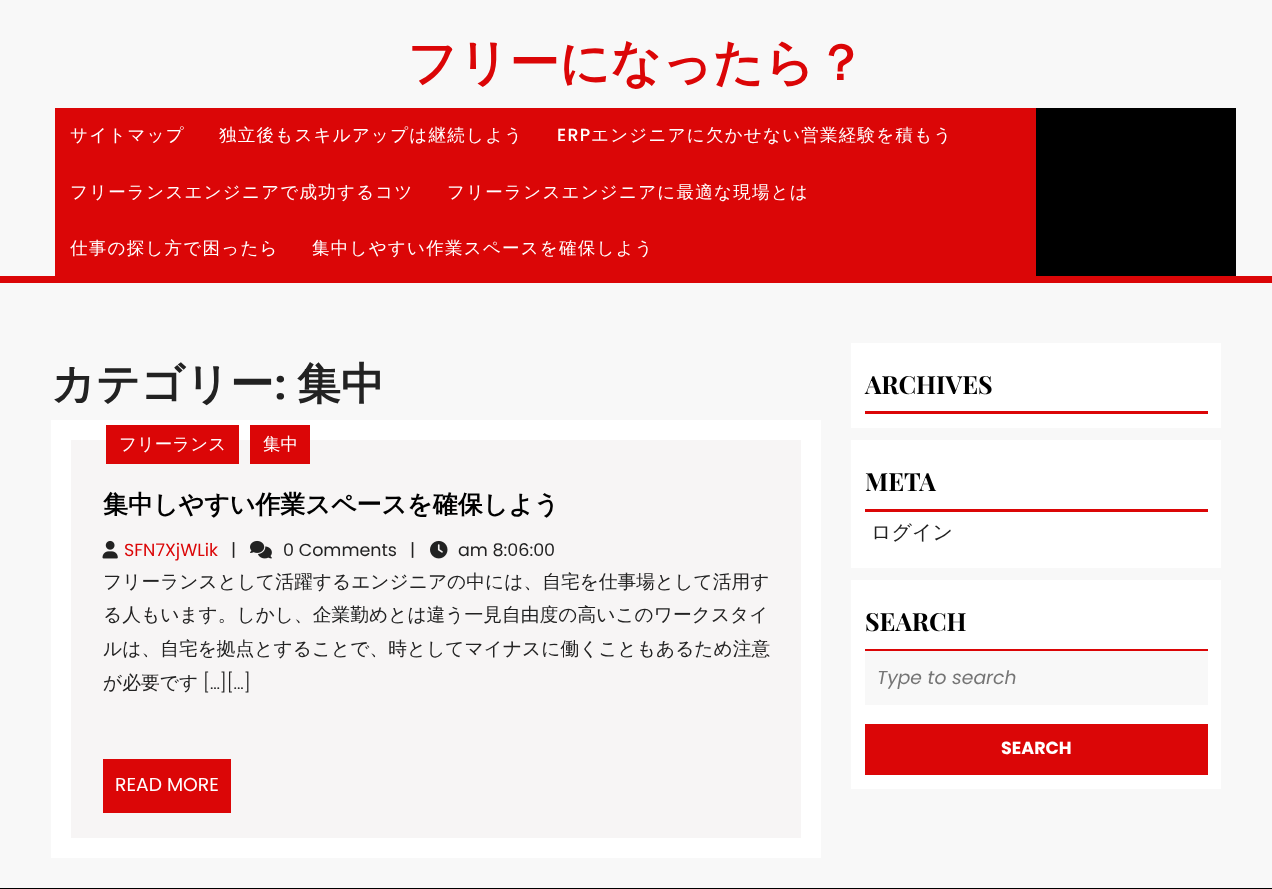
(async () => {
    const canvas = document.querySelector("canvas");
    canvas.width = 1272;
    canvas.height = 889;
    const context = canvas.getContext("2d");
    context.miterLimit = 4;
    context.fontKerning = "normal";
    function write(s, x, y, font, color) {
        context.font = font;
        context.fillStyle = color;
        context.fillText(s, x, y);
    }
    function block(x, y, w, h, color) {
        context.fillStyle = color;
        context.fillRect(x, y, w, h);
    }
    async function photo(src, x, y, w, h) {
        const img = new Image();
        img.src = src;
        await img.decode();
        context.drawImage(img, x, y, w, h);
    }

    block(0, 0, 1272, 889, "rgb(248, 248, 248)");
    block(0, 276, 1272, 7, "rgb(219, 6, 7)");
    write("フリーになったら？", 407, 80, "bold 50px WenQuanYi Zen Hei", "rgb(219, 6, 7)");
    block(55, 108, 981, 168, "rgb(219, 6, 7)");
    context.letterSpacing = "1.25px";
    write("サイトマップ", 70, 141, "500 17.5px WenQuanYi Zen Hei", "rgb(255, 255, 255)");
    write("独立後もスキルアップは継続しよう", 219, 141, "500 17.5px WenQuanYi Zen Hei", "rgb(255, 255, 255)");
    write("ERP", 557, 141, "500 17.5px Poppins", "rgb(255, 255, 255)");
    write("エンジニアに欠かせない営業経験を積もう", 591, 141, "500 17.5px WenQuanYi Zen Hei", "rgb(255, 255, 255)");
    write("フリーランスエンジニアで成功するコツ", 70, 198, "500 17.5px WenQuanYi Zen Hei", "rgb(255, 255, 255)");
    write("フリーランスエンジニアに最適な現場とは", 447, 198, "500 17.5px WenQuanYi Zen Hei", "rgb(255, 255, 255)");
    write("仕事の探し方で困ったら", 70, 254, "500 17.5px WenQuanYi Zen Hei", "rgb(255, 255, 255)");
    write("集中しやすい作業スペースを確保しよう", 312, 254, "500 17.5px WenQuanYi Zen Hei", "rgb(255, 255, 255)");
    block(1036, 108, 200, 168, "rgb(0, 0, 0)");
    context.letterSpacing = "0px";
    write("カテゴリー", 51, 399, "bold 43.75px WenQuanYi Zen Hei", "rgb(34, 34, 34)");
    write(":", 274, 399, "bold 43.75px Playfair Display", "rgb(34, 34, 34)");
    write("集中", 297, 399, "bold 43.75px WenQuanYi Zen Hei", "rgb(34, 34, 34)");
    block(51, 420, 770, 438, "rgb(255, 255, 255)");
    block(71, 440, 730, 398, "rgb(247, 245, 245)");
    block(106, 425, 133, 39, "rgb(219, 6, 7)");
    write("フリーランス", 119, 450, "500 17.5px WenQuanYi Zen Hei", "rgb(255, 255, 255)");
    block(250, 425, 60, 39, "rgb(219, 6, 7)");
    write("集中", 263, 450, "500 17.5px WenQuanYi Zen Hei", "rgb(255, 255, 255)");
    write("集中しやすい作業スペースを確保しよう", 103, 513, "bold 25px WenQuanYi Zen Hei", "rgb(0, 0, 0)");
    await photo("media/1.png", 102, 540, 16, 19);
    write("SFN7XjWLik", 124, 556, "17.5px Poppins", "rgb(219, 6, 7)");
    write("|", 231, 556, "17.5px Poppins", "rgb(34, 34, 34)");
    await photo("media/2.png", 250, 540, 22, 19);
    write("0 Comments", 283, 556, "17.5px Poppins", "rgb(34, 34, 34)");
    write("|", 410, 556, "17.5px Poppins", "rgb(34, 34, 34)");
    await photo("media/3.png", 430, 540, 18, 19);
    write("am 8:06:00", 458, 556, "17.5px Poppins", "rgb(34, 34, 34)");
    write("フリーランスとして活躍するエンジニアの中には、自宅を仕事場として活用す", 103, 588, "500 18.75px WenQuanYi Zen Hei", "rgb(34, 34, 34)");
    write("る人もいます。しかし、企業勤めとは違う一見自由度の高いこのワークスタイ", 103, 621, "500 18.75px WenQuanYi Zen Hei", "rgb(34, 34, 34)");
    write("ルは、自宅を拠点とすることで、時としてマイナスに働くこともあるため注意", 103, 655, "500 18.75px WenQuanYi Zen Hei", "rgb(34, 34, 34)");
    write("が必要です", 103, 689, "500 18.75px WenQuanYi Zen Hei", "rgb(34, 34, 34)");
    write("[…][...]", 203, 689, "300 18.75px Poppins", "rgb(34, 34, 34)");
    block(103, 759, 128, 54, "rgb(219, 6, 7)");
    write("READ MORE", 115, 791, "18.75px Poppins", "rgb(255, 255, 255)");
    block(851, 343, 370, 85, "rgb(255, 255, 255)");
    block(865, 411, 343, 3, "rgb(219, 6, 7)");
    write("ARCHIVES", 865, 394, "bold 25px Playfair Display", "rgb(0, 0, 0)");
    block(851, 440, 370, 128, "rgb(255, 255, 255)");
    block(865, 509, 343, 3, "rgb(219, 6, 7)");
    write("META", 865, 491, "bold 25px Playfair Display", "rgb(0, 0, 0)");
    write("ログイン", 871, 539, "500 20px WenQuanYi Zen Hei", "rgb(34, 34, 34)");
    block(851, 580, 370, 209, "rgb(255, 255, 255)");
    block(865, 649, 343, 2, "rgb(219, 6, 7)");
    write("SEARCH", 865, 631, "bold 25px Playfair Display", "rgb(0, 0, 0)");
    block(865, 651, 343, 54, "rgb(248, 248, 248)");
    write("Type to search", 877, 684, "italic 18.75px Poppins", "rgb(117, 117, 117)");
    block(865, 724, 343, 51, "rgb(219, 6, 7)");
    write("SEARCH", 1001, 754, "bold 17.5px Poppins", "rgb(255, 255, 255)");
    block(0, 888, 1272, 1, "rgb(0, 0, 0)");
})();
